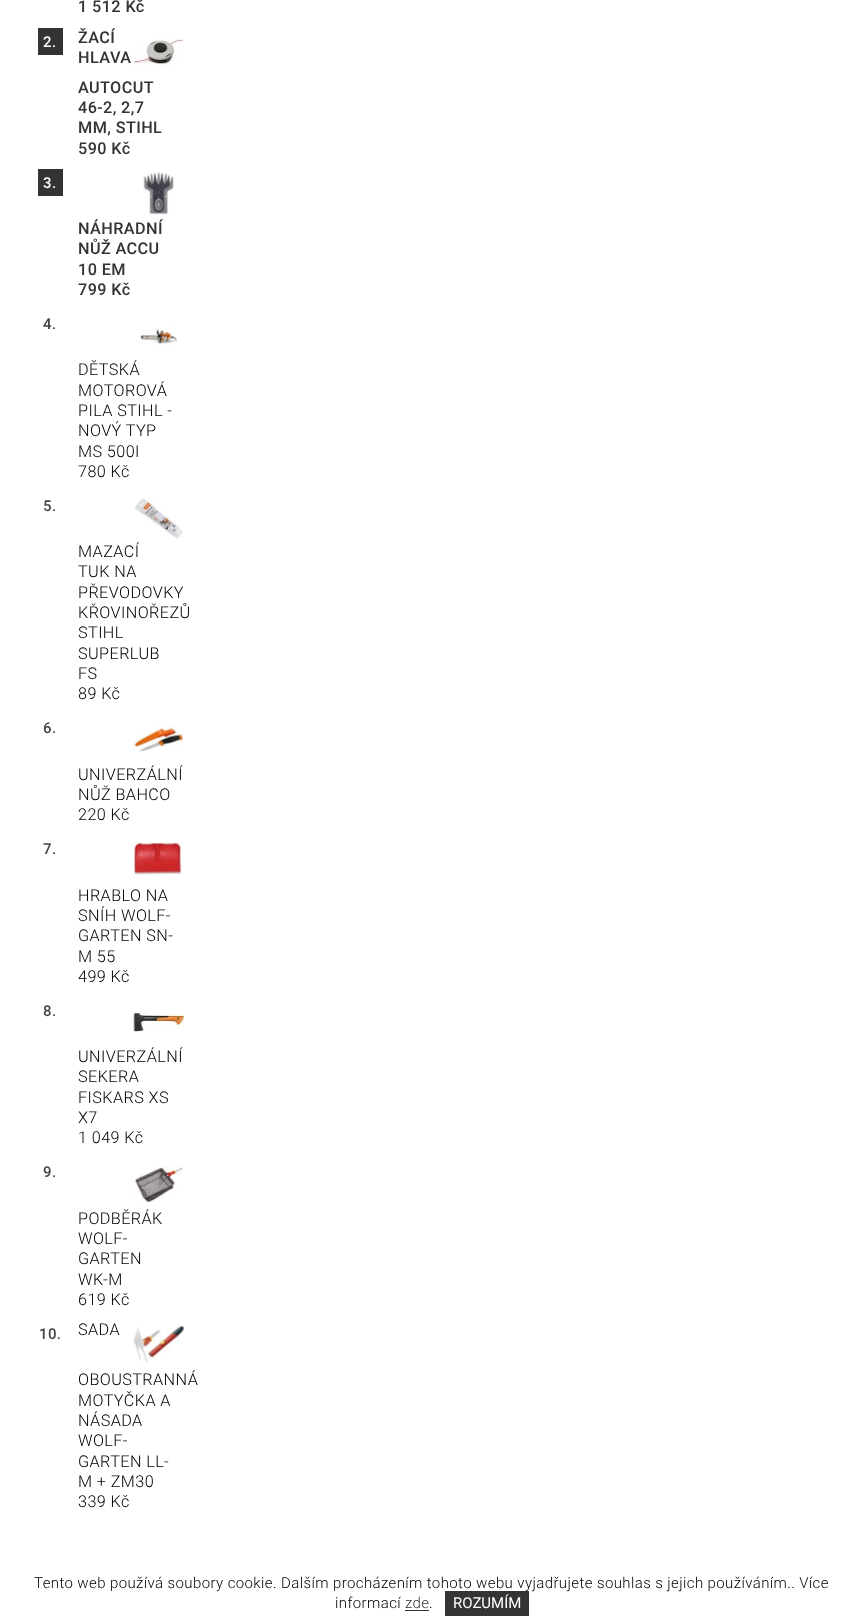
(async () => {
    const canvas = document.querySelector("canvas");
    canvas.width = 863;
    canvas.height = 1620;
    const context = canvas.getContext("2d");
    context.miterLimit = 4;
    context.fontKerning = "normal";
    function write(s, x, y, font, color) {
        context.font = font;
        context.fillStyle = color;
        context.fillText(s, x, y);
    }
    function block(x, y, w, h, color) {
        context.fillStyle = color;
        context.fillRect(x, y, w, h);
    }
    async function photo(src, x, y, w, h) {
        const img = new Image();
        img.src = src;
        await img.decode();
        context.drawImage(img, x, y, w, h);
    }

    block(0, 0, 863, 1620, "rgb(255, 255, 255)");
    context.letterSpacing = "0.4px";
    write("1 512 Kč", 78, 12, "500 16.25px Roboto", "rgb(52, 52, 52)");
    block(38, 28, 25, 27, "rgb(52, 52, 52)");
    write("2.", 43, 47, "500 15px Roboto", "rgb(255, 255, 255)");
    write("ŽACÍ", 78, 43, "500 16.25px Roboto", "rgb(52, 52, 52)");
    write("HLAVA", 78, 63, "500 16.25px Roboto", "rgb(52, 52, 52)");
    write("AUTOCUT", 78, 93, "500 16.25px Roboto", "rgb(52, 52, 52)");
    write("46-2, 2,7", 78, 113, "500 16.25px Roboto", "rgb(52, 52, 52)");
    write("MM, STIHL", 78, 133, "500 16.25px Roboto", "rgb(52, 52, 52)");
    write("590 Kč", 78, 154, "500 16.25px Roboto", "rgb(52, 52, 52)");
    await photo("media/1.png", 133, 39, 51, 28);
    block(38, 169, 25, 27, "rgb(52, 52, 52)");
    write("3.", 43, 188, "500 15px Roboto", "rgb(255, 255, 255)");
    await photo("media/2.png", 143, 172, 31, 43);
    write("NÁHRADNÍ", 78, 234, "500 16.25px Roboto", "rgb(52, 52, 52)");
    write("NŮŽ ACCU", 78, 254, "500 16.25px Roboto", "rgb(52, 52, 52)");
    write("10 EM", 78, 275, "500 16.25px Roboto", "rgb(52, 52, 52)");
    write("799 Kč", 78, 295, "500 16.25px Roboto", "rgb(52, 52, 52)");
    write("4.", 43, 329, "500 15px Roboto", "rgb(68, 68, 68)");
    await photo("media/3.png", 140, 327, 37, 18);
    write("DĚTSKÁ", 78, 375, "300 16.25px Roboto", "rgb(0, 0, 0)");
    write("MOTOROVÁ", 78, 396, "300 16.25px Roboto", "rgb(0, 0, 0)");
    write("PILA STIHL -", 78, 416, "300 16.25px Roboto", "rgb(0, 0, 0)");
    write("NOVÝ TYP", 78, 436, "300 16.25px Roboto", "rgb(0, 0, 0)");
    write("MS 500I", 78, 457, "300 16.25px Roboto", "rgb(0, 0, 0)");
    write("780 Kč", 78, 477, "300 16.25px Roboto", "rgb(0, 0, 0)");
    write("5.", 43, 511, "500 15px Roboto", "rgb(68, 68, 68)");
    await photo("media/4.png", 134, 498, 49, 41);
    write("MAZACÍ", 78, 557, "300 16.25px Roboto", "rgb(0, 0, 0)");
    write("TUK NA", 78, 577, "300 16.25px Roboto", "rgb(0, 0, 0)");
    write("PŘEVODOVKY", 78, 598, "300 16.25px Roboto", "rgb(0, 0, 0)");
    write("KŘOVINOŘEZŮ", 78, 618, "300 16.25px Roboto", "rgb(0, 0, 0)");
    write("STIHL", 78, 638, "300 16.25px Roboto", "rgb(0, 0, 0)");
    write("SUPERLUB", 78, 659, "300 16.25px Roboto", "rgb(0, 0, 0)");
    write("FS", 78, 679, "300 16.25px Roboto", "rgb(0, 0, 0)");
    write("89 Kč", 78, 699, "300 16.25px Roboto", "rgb(0, 0, 0)");
    write("6.", 43, 733, "500 15px Roboto", "rgb(68, 68, 68)");
    await photo("media/5.png", 134, 726, 50, 26);
    write("UNIVERZÁLNÍ", 78, 780, "300 16.25px Roboto", "rgb(0, 0, 0)");
    write("NŮŽ BAHCO", 78, 800, "300 16.25px Roboto", "rgb(0, 0, 0)");
    write("220 Kč", 78, 820, "300 16.25px Roboto", "rgb(0, 0, 0)");
    write("7.", 43, 854, "500 15px Roboto", "rgb(68, 68, 68)");
    await photo("media/6.png", 133, 842, 49, 33);
    write("HRABLO NA", 78, 901, "300 16.25px Roboto", "rgb(0, 0, 0)");
    write("SNÍH WOLF-", 78, 921, "300 16.25px Roboto", "rgb(0, 0, 0)");
    write("GARTEN SN-", 78, 941, "300 16.25px Roboto", "rgb(0, 0, 0)");
    write("M 55", 78, 962, "300 16.25px Roboto", "rgb(0, 0, 0)");
    write("499 Kč", 78, 982, "300 16.25px Roboto", "rgb(0, 0, 0)");
    write("8.", 43, 1016, "500 15px Roboto", "rgb(68, 68, 68)");
    await photo("media/7.png", 133, 1013, 51, 19);
    write("UNIVERZÁLNÍ", 78, 1062, "300 16.25px Roboto", "rgb(0, 0, 0)");
    write("SEKERA", 78, 1082, "300 16.25px Roboto", "rgb(0, 0, 0)");
    write("FISKARS XS", 78, 1103, "300 16.25px Roboto", "rgb(0, 0, 0)");
    write("X7", 78, 1123, "300 16.25px Roboto", "rgb(0, 0, 0)");
    write("1 049 Kč", 78, 1143, "300 16.25px Roboto", "rgb(0, 0, 0)");
    write("9.", 43, 1177, "500 15px Roboto", "rgb(68, 68, 68)");
    await photo("media/8.png", 134, 1166, 49, 37);
    write("PODBĚRÁK", 78, 1224, "300 16.25px Roboto", "rgb(0, 0, 0)");
    write("WOLF-", 78, 1244, "300 16.25px Roboto", "rgb(0, 0, 0)");
    write("GARTEN", 78, 1264, "300 16.25px Roboto", "rgb(0, 0, 0)");
    write("WK-M", 78, 1285, "300 16.25px Roboto", "rgb(0, 0, 0)");
    write("619 Kč", 78, 1305, "300 16.25px Roboto", "rgb(0, 0, 0)");
    write("SADA", 78, 1335, "300 16.25px Roboto", "rgb(0, 0, 0)");
    write("OBOUSTRANNÁ", 78, 1385, "300 16.25px Roboto", "rgb(0, 0, 0)");
    write("MOTYČKA A", 78, 1406, "300 16.25px Roboto", "rgb(0, 0, 0)");
    write("NÁSADA", 78, 1426, "300 16.25px Roboto", "rgb(0, 0, 0)");
    write("WOLF-", 78, 1446, "300 16.25px Roboto", "rgb(0, 0, 0)");
    write("GARTEN LL-", 78, 1467, "300 16.25px Roboto", "rgb(0, 0, 0)");
    write("M + ZM30", 78, 1487, "300 16.25px Roboto", "rgb(0, 0, 0)");
    write("339 Kč", 78, 1507, "300 16.25px Roboto", "rgb(0, 0, 0)");
    write("10.", 39, 1339, "500 15px Roboto", "rgb(68, 68, 68)");
    await photo("media/9.png", 133, 1326, 51, 37);
    write("Tento web používá soubory cookie. Dalším procházením tohoto webu vyjadřujete souhlas s jejich používáním.. Více", 34, 1588, "300 15px Roboto", "rgb(0, 0, 0)");
    write("informací", 335, 1608, "300 15px Roboto", "rgb(0, 0, 0)");
    write("zde", 405, 1608, "300 15px Roboto", "rgb(52, 52, 52)");
    block(405, 1610, 24, 1, "rgb(52, 52, 52)");
    write(".", 429, 1608, "300 15px Roboto", "rgb(0, 0, 0)");
    block(445, 1591, 84, 25, "rgb(52, 52, 52)");
    context.letterSpacing = "0px";
    write("ROZUMÍM", 453, 1608, "15px Roboto", "rgb(255, 255, 255)");
})();
